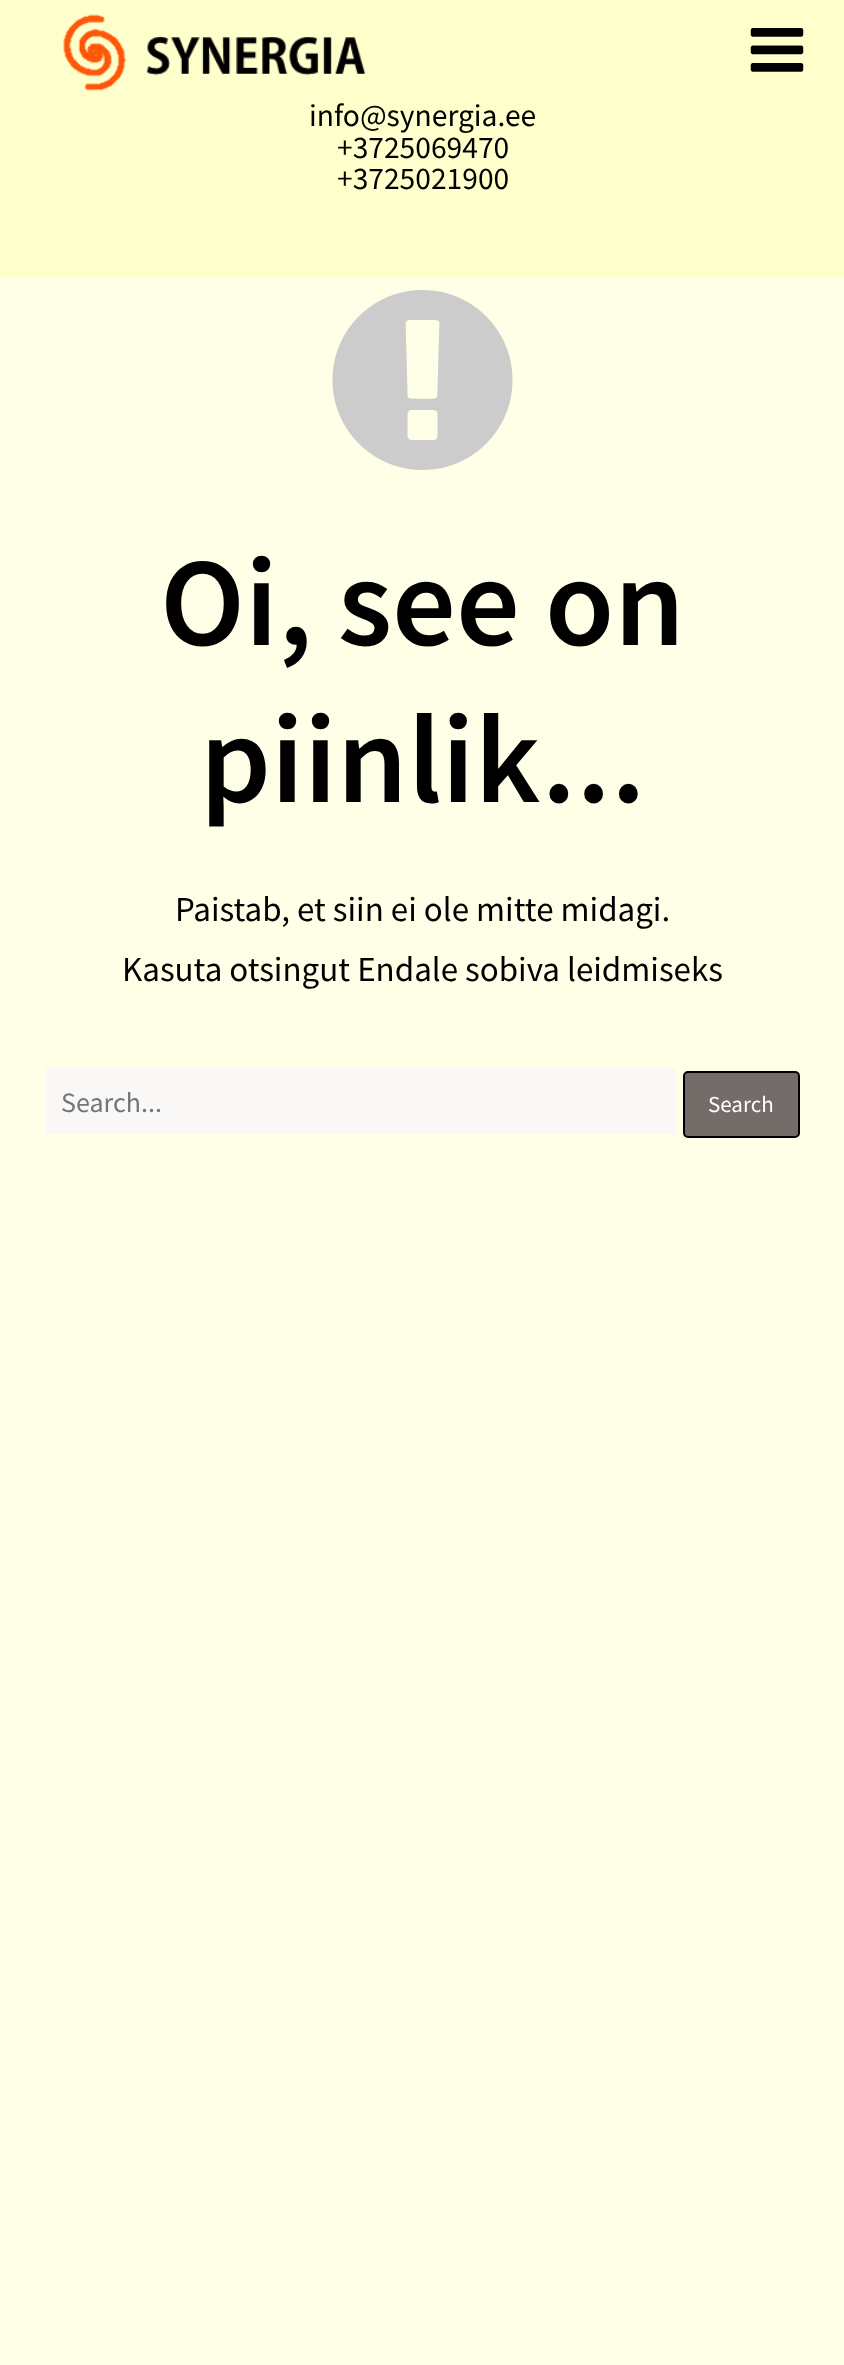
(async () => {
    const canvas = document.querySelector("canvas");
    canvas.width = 844;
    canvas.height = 2365;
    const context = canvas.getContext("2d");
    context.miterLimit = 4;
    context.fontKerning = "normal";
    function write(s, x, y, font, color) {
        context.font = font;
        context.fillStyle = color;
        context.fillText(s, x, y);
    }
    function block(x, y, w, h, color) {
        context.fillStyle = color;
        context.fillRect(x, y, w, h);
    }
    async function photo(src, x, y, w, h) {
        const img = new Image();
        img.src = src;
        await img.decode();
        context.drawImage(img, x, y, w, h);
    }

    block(0, 0, 844, 2365, "rgb(255, 255, 232)");
    block(0, 0, 844, 277, "rgb(255, 255, 204)");
    await photo("media/1.png", 63, 14, 303, 77);
    await photo("media/2.png", 750, 28, 54, 44);
    write("info@synergia.ee", 309, 126, "31.5px Source Sans Pro", "rgb(0, 0, 0)");
    write("+3725069470", 337, 158, "31.5px Source Sans Pro", "rgb(0, 0, 0)");
    write("+3725021900", 337, 189, "31.5px Source Sans Pro", "rgb(0, 0, 0)");
    await photo("media/3.png", 332, 290, 181, 180);
    write("Oi, see on", 160, 645, "600 126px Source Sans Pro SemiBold", "rgb(0, 0, 0)");
    write("piinlik...", 200, 802, "600 126px Source Sans Pro SemiBold", "rgb(0, 0, 0)");
    write("Paistab, et siin ei ole mitte midagi.", 175, 921, "35px Source Sans Pro", "rgb(0, 0, 0)");
    write("Kasuta otsingut Endale sobiva leidmiseks", 122, 981, "35px Source Sans Pro", "rgb(0, 0, 0)");
    block(46, 1068, 630, 66, "rgb(249, 248, 247)");
    write("Search...", 61, 1112, "28px Source Sans Pro", "rgb(117, 117, 117)");
    context.fillStyle = "rgb(115, 108, 104)";
    context.beginPath();
    context.roundRect(684, 1072, 115, 65, 4);
    context.fill();
    context.strokeStyle = "rgb(0, 0, 0)";
    context.lineWidth = 2;
    context.stroke();
    write("Search", 708, 1112, "23px Source Sans Pro", "rgb(255, 255, 255)");
})();
